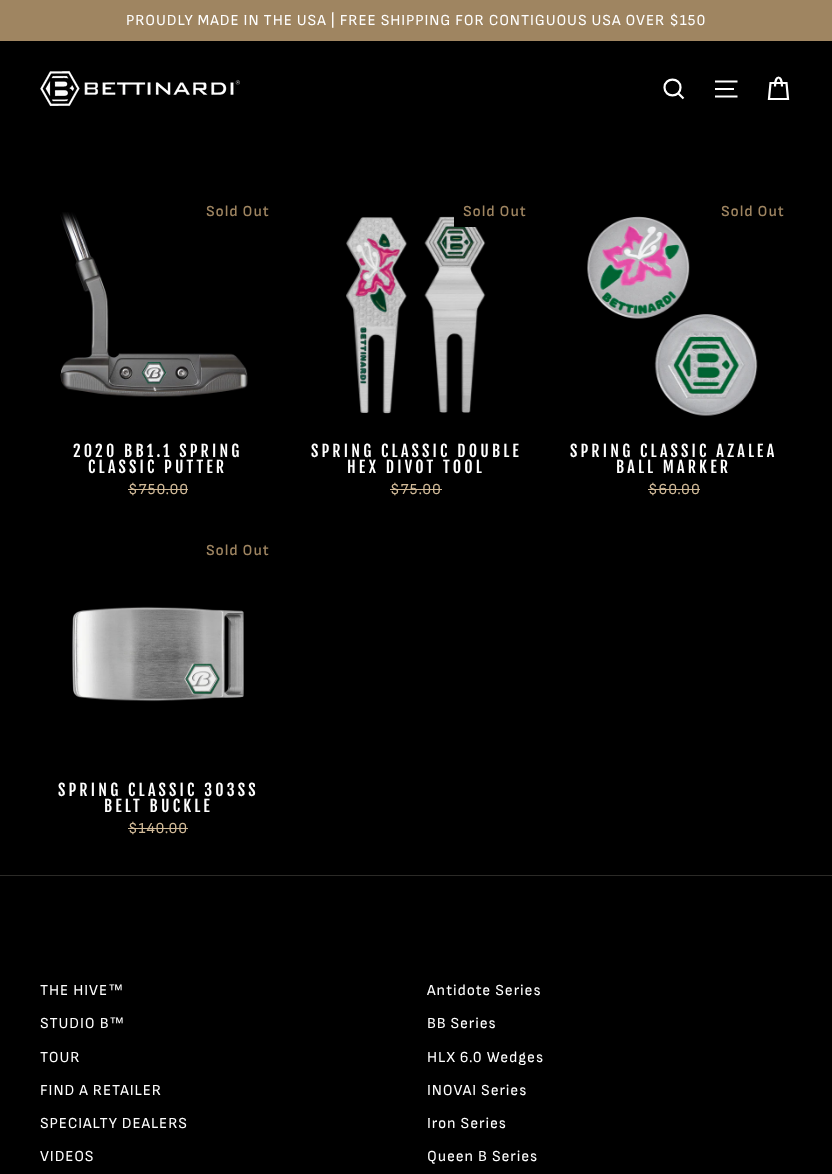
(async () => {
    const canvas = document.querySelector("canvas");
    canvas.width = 832;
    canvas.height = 1174;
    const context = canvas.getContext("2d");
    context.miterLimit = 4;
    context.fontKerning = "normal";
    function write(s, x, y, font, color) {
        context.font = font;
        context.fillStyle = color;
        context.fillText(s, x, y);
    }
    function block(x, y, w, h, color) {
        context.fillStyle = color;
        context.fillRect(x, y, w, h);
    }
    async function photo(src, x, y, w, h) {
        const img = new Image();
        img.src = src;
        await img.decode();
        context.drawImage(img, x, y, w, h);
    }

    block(0, 0, 832, 1174, "rgb(0, 0, 0)");
    block(0, 0, 832, 41, "rgb(159, 133, 97)");
    context.letterSpacing = "0.9px";
    write("PROUDLY MADE IN THE USA | FREE SHIPPING FOR CONTIGUOUS USA OVER $150", 126, 25, "15.3px Sofia Sans", "rgb(255, 255, 255)");
    await photo("media/1.png", 40, 71, 200, 35);
    context.beginPath();
    context.moveTo(680.5, 87.5);
    context.bezierCurveTo(680.5, 98, 664.5, 98, 664.5, 87.5);
    context.bezierCurveTo(664.5, 77, 680.5, 77, 680.5, 87.5);
    context.closePath();
    context.moveTo(683.5, 98.5);
    context.lineTo(678.5, 93.5);
    context.strokeStyle = "rgb(255, 255, 255)";
    context.lineWidth = 2.2;
    context.stroke();
    context.beginPath();
    context.moveTo(715, 81.5);
    context.lineTo(737.5, 81.5);
    context.moveTo(715, 89);
    context.lineTo(734, 89);
    context.moveTo(715, 96.5);
    context.lineTo(737.5, 96.5);
    context.stroke();
    context.beginPath();
    context.moveTo(775, 86.5);
    context.bezierCurveTo(775, 74.5, 782, 74.5, 782, 86.5);
    context.moveTo(770.5, 83);
    context.lineTo(786.5, 83);
    context.lineTo(788, 99);
    context.lineTo(769, 99);
    context.closePath();
    context.stroke();
    await photo("media/2.png", 60, 212, 188, 185);
    write("Sold Out", 206, 216, "600 15.3px Sofia Sans", "rgb(159, 133, 97)");
    context.letterSpacing = "3.2px";
    write("2020 BB1.1 SPRING", 73, 457, "16px Fjalla One", "rgb(255, 255, 255)");
    write("CLASSIC PUTTER", 88, 473, "16px Fjalla One", "rgb(255, 255, 255)");
    context.letterSpacing = "0.9px";
    write("$750.00", 128, 494, "15.3px Sofia Sans", "rgb(209, 186, 152)");
    block(128, 489, 60, 1, "rgb(209, 186, 152)");
    await photo("media/3.png", 346, 216, 140, 198);
    block(454, 216, 23, 11, "rgb(0, 0, 0)");
    write("Sold Out", 463, 216, "600 15.3px Sofia Sans", "rgb(159, 133, 97)");
    context.letterSpacing = "3.2px";
    write("SPRING CLASSIC DOUBLE", 311, 457, "16px Fjalla One", "rgb(255, 255, 255)");
    write("HEX DIVOT TOOL", 347, 473, "16px Fjalla One", "rgb(255, 255, 255)");
    context.letterSpacing = "0.9px";
    write("$75.00", 390, 494, "15.3px Sofia Sans", "rgb(209, 186, 152)");
    block(390, 489, 52, 1, "rgb(209, 186, 152)");
    await photo("media/4.png", 587, 216, 171, 200);
    write("Sold Out", 721, 216, "600 15.3px Sofia Sans", "rgb(159, 133, 97)");
    context.letterSpacing = "3.2px";
    write("SPRING CLASSIC AZALEA", 570, 457, "16px Fjalla One", "rgb(255, 255, 255)");
    write("BALL MARKER", 616, 473, "16px Fjalla One", "rgb(255, 255, 255)");
    context.letterSpacing = "0.9px";
    write("$60.00", 648, 494, "15.3px Sofia Sans", "rgb(209, 186, 152)");
    block(648, 489, 52, 1, "rgb(209, 186, 152)");
    write("Sold Out", 206, 555, "600 15.3px Sofia Sans", "rgb(159, 133, 97)");
    await photo("media/5.png", 72, 606, 172, 96);
    context.letterSpacing = "3.2px";
    write("SPRING CLASSIC 303SS", 58, 796, "16px Fjalla One", "rgb(255, 255, 255)");
    write("BELT BUCKLE", 104, 812, "16px Fjalla One", "rgb(255, 255, 255)");
    context.letterSpacing = "0.9px";
    write("$140.00", 128, 833, "15.3px Sofia Sans", "rgb(209, 186, 152)");
    block(128, 828, 60, 1, "rgb(209, 186, 152)");
    block(0, 875, 832, 1, "rgb(43, 42, 39)");
    write("THE HIVE", 40, 995, "15.3px Sofia Sans", "rgb(255, 255, 255)");
    write("™", 108, 995, "15.3px Liberation Sans", "rgb(255, 255, 255)");
    write("STUDIO B", 40, 1028, "15.3px Sofia Sans", "rgb(255, 255, 255)");
    write("™", 109, 1028, "15.3px Liberation Sans", "rgb(255, 255, 255)");
    write("TOUR", 40, 1062, "15.3px Sofia Sans", "rgb(255, 255, 255)");
    write("FIND A RETAILER", 40, 1095, "15.3px Sofia Sans", "rgb(255, 255, 255)");
    write("SPECIALTY DEALERS", 40, 1128, "15.3px Sofia Sans", "rgb(255, 255, 255)");
    write("VIDEOS", 40, 1161, "15.3px Sofia Sans", "rgb(255, 255, 255)");
    write("Antidote Series", 427, 995, "15.3px Sofia Sans", "rgb(255, 255, 255)");
    write("BB Series", 427, 1028, "15.3px Sofia Sans", "rgb(255, 255, 255)");
    write("HLX 6.0 Wedges", 427, 1062, "15.3px Sofia Sans", "rgb(255, 255, 255)");
    write("INOVAI Series", 427, 1095, "15.3px Sofia Sans", "rgb(255, 255, 255)");
    write("Iron Series", 427, 1128, "15.3px Sofia Sans", "rgb(255, 255, 255)");
    write("Queen B Series", 427, 1161, "15.3px Sofia Sans", "rgb(255, 255, 255)");
})();
